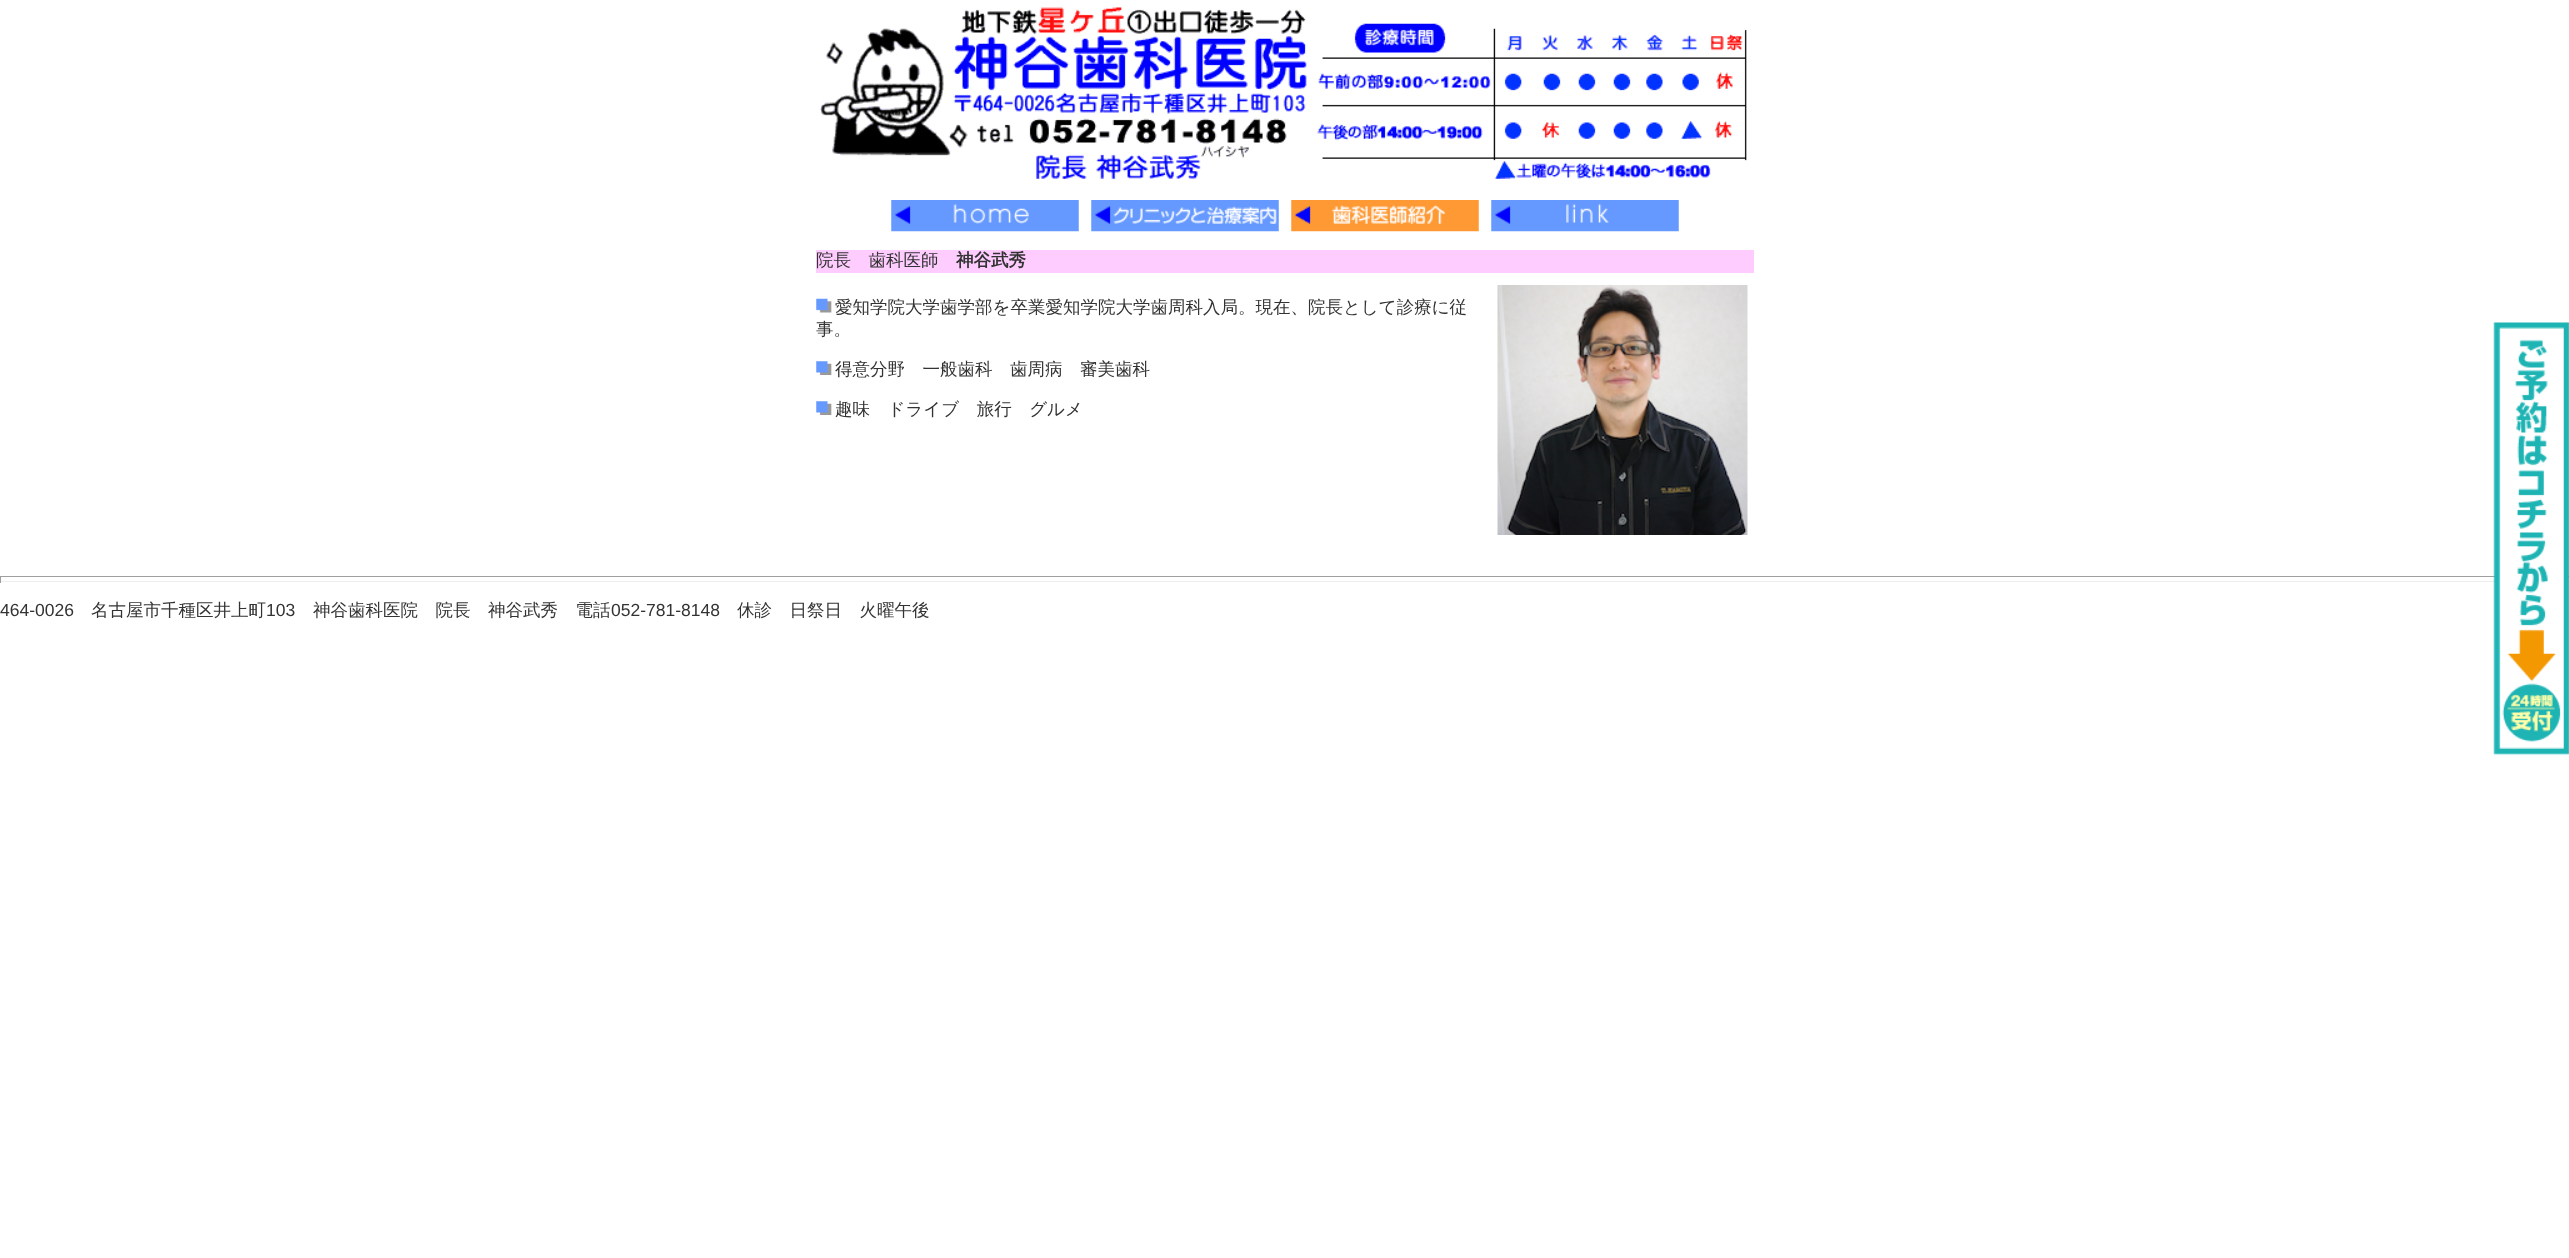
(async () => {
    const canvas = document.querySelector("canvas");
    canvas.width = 2569;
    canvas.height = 1258;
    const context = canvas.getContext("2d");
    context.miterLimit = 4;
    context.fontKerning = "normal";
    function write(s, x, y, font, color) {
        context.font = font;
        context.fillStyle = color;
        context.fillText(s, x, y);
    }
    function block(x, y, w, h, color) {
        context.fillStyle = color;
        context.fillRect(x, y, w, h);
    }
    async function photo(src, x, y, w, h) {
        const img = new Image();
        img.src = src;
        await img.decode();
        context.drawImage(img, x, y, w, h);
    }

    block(0, 0, 2569, 1258, "rgb(255, 255, 255)");
    await photo("media/1.png", 820, 7, 927, 172);
    await photo("media/2.png", 891, 200, 188, 32);
    await photo("media/3.png", 1091, 200, 188, 32);
    await photo("media/4.png", 1291, 200, 188, 32);
    await photo("media/5.png", 1491, 200, 188, 32);
    block(816, 250, 938, 23, "rgb(255, 204, 255)");
    write("院長　歯科医師", 816, 266, "500 17.5px WenQuanYi Zen Hei", "rgb(51, 51, 51)");
    write("神谷武秀", 956, 266, "bold 17.5px WenQuanYi Zen Hei", "rgb(51, 51, 51)");
    await photo("media/6.png", 816, 298, 16, 15);
    write("愛知学院大学歯学部を卒業愛知学院大学歯周科入局。現在、院長として診療に従", 835, 313, "500 17.5px WenQuanYi Zen Hei", "rgb(51, 51, 51)");
    write("事。", 816, 335, "500 17.5px WenQuanYi Zen Hei", "rgb(51, 51, 51)");
    await photo("media/7.png", 1497, 285, 251, 250);
    await photo("media/8.png", 816, 361, 16, 14);
    write("得意分野　一般歯科　歯周病　審美歯科", 835, 375, "500 17.5px WenQuanYi Zen Hei", "rgb(51, 51, 51)");
    await photo("media/8.png", 816, 401, 16, 14);
    write("趣味　ドライブ　旅行　グルメ", 835, 415, "500 17.5px WenQuanYi Zen Hei", "rgb(51, 51, 51)");
    block(0, 576, 2569, 1, "rgb(159, 159, 159)");
    block(0, 581, 2569, 1, "rgb(238, 238, 238)");
    await photo("media/9.png", 2493, 322, 76, 434);
    block(0, 576, 1, 7, "rgb(159, 159, 159)");
    write("464-0026", 0, 616, "17.5px Liberation Sans", "rgb(51, 51, 51)");
    write("名古屋市千種区井上町", 91, 616, "500 17.5px WenQuanYi Zen Hei", "rgb(51, 51, 51)");
    write("103", 266, 616, "17.5px Liberation Sans", "rgb(51, 51, 51)");
    write("神谷歯科医院　院長　神谷武秀　電話", 313, 616, "500 17.5px WenQuanYi Zen Hei", "rgb(51, 51, 51)");
    write("052-781-8148", 611, 616, "17.5px Liberation Sans", "rgb(51, 51, 51)");
    write("休診　日祭日　火曜午後", 737, 616, "500 17.5px WenQuanYi Zen Hei", "rgb(51, 51, 51)");
})();
